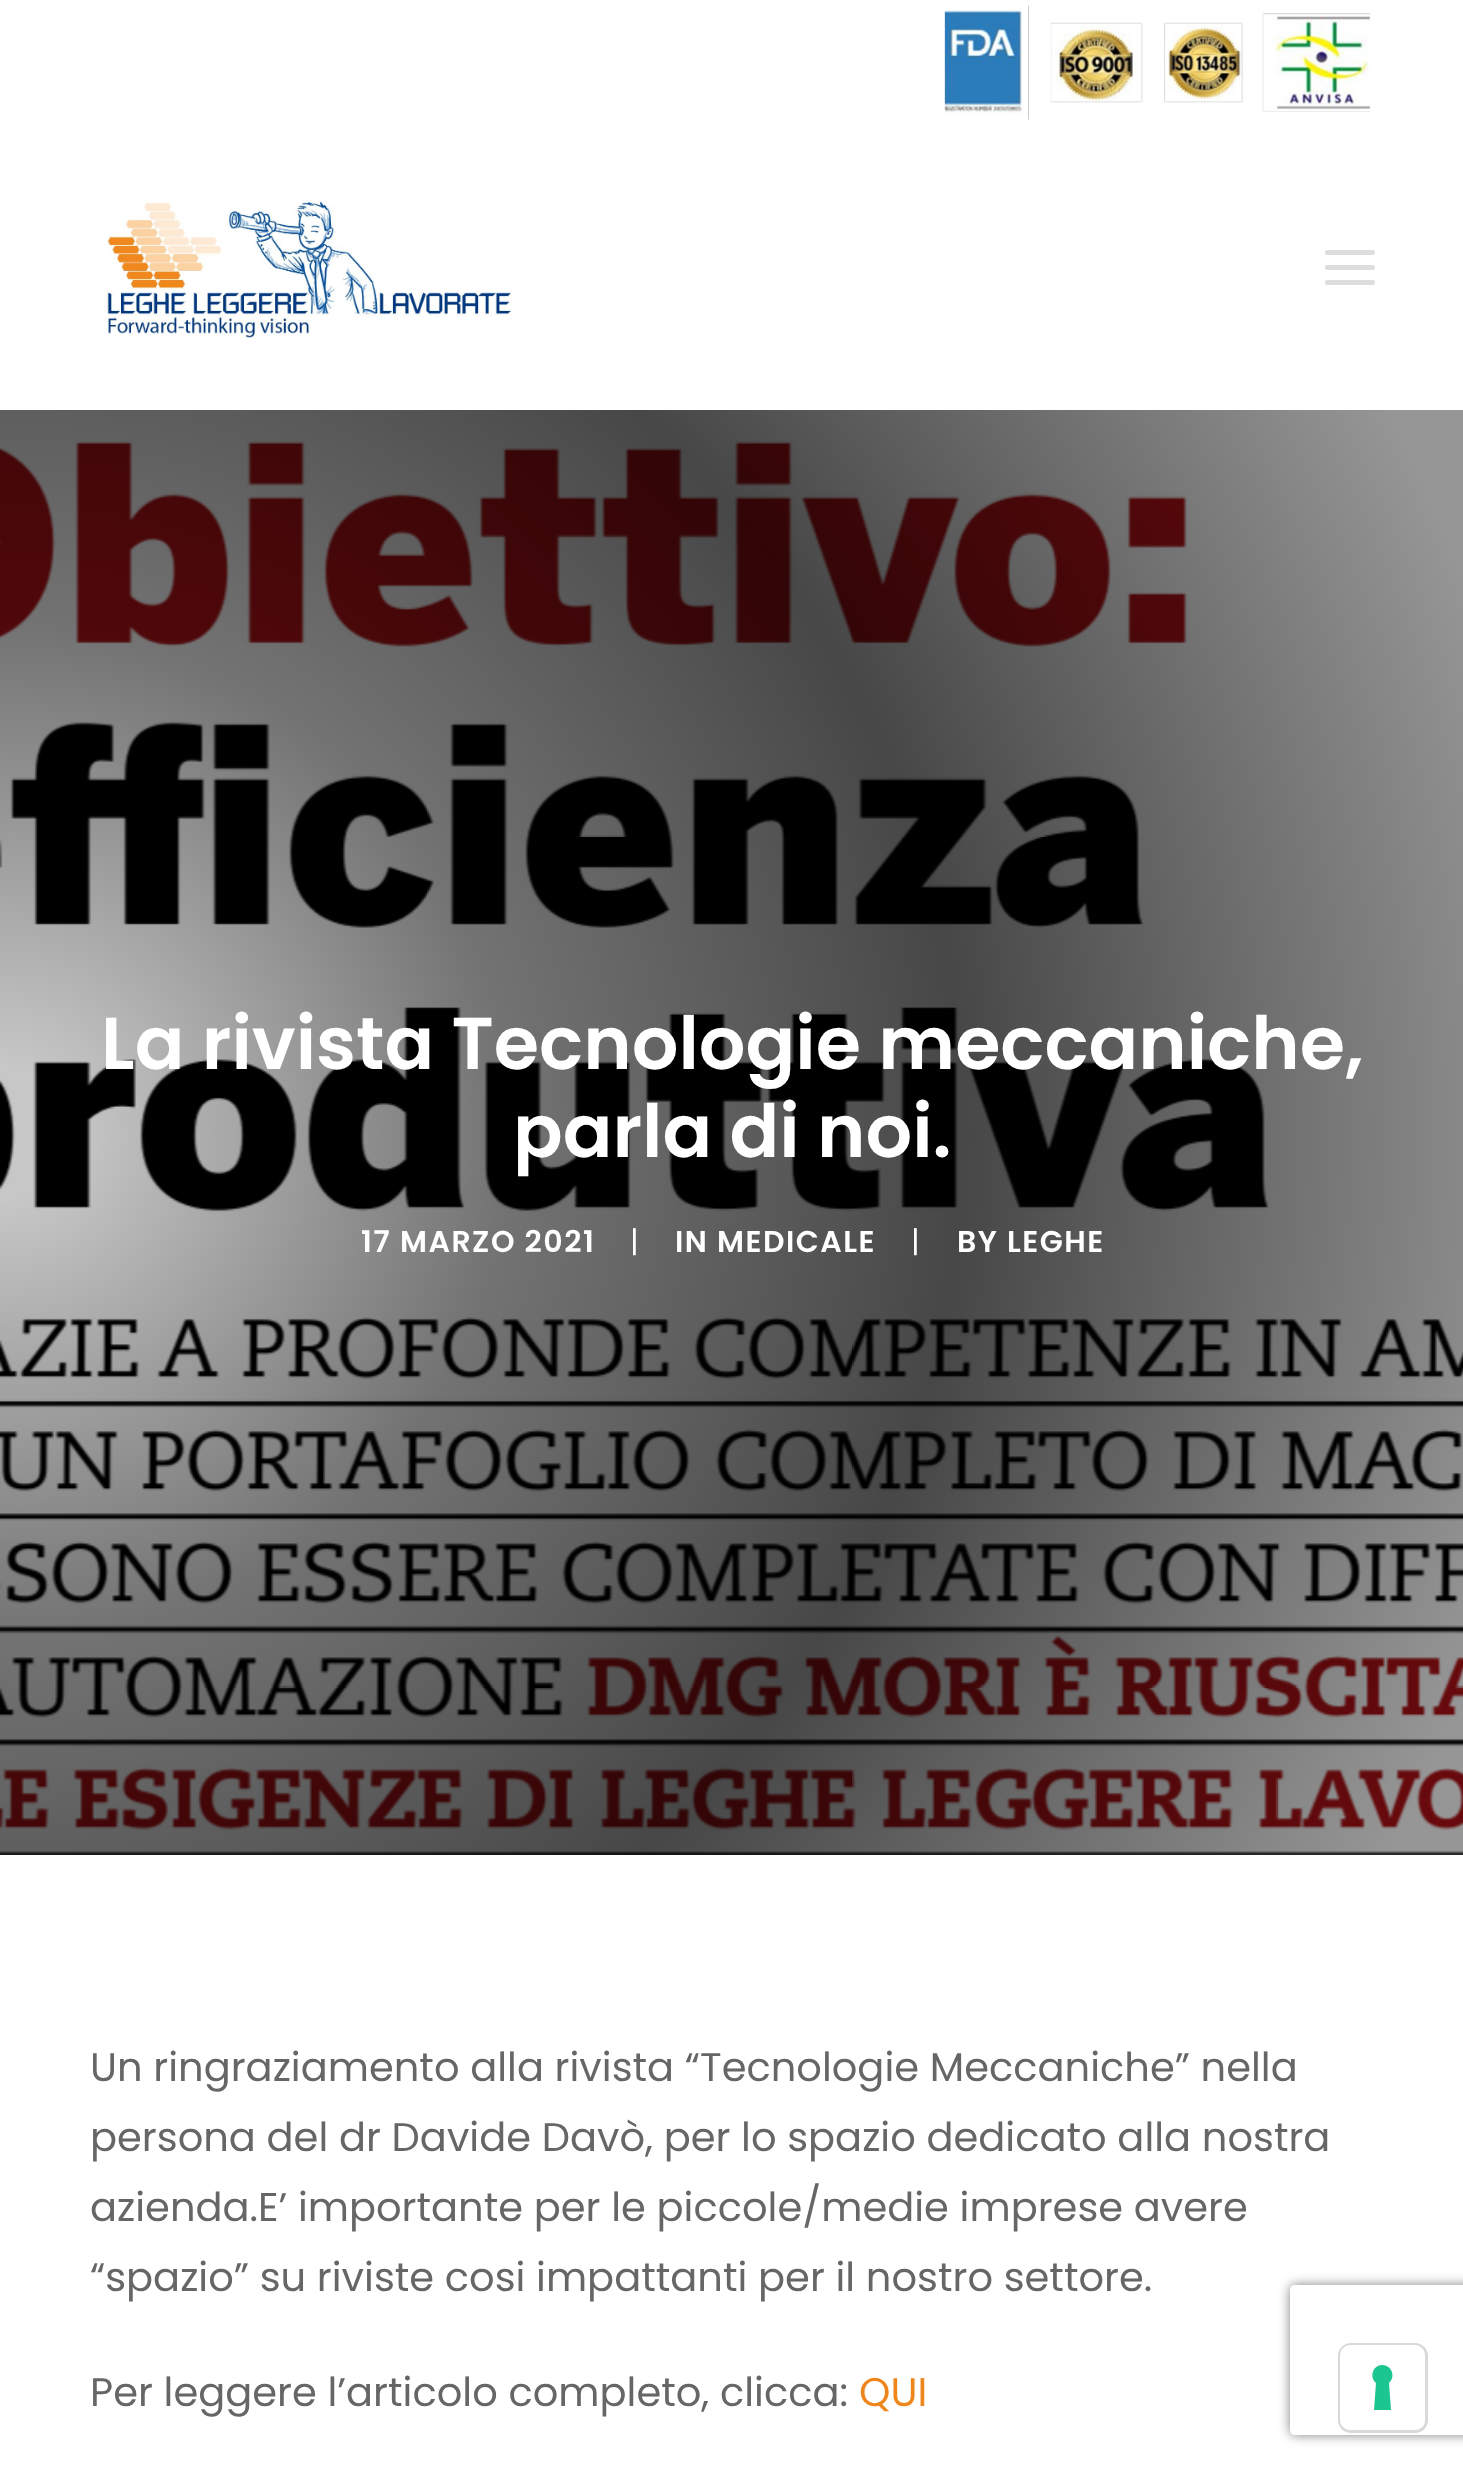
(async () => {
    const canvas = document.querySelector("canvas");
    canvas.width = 1463;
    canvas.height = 2468;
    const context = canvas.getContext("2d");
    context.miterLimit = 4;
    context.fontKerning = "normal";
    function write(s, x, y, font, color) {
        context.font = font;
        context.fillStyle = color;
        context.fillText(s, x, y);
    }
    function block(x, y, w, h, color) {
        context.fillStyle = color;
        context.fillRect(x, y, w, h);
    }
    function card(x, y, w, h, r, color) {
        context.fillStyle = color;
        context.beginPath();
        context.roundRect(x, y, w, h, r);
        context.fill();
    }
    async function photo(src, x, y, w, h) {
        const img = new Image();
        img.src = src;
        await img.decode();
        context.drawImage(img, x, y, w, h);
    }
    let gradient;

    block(0, 0, 1463, 2468, "rgb(255, 255, 255)");
    await photo("media/1.png", 944, 5, 427, 116);
    await photo("media/2.png", 107, 199, 407, 140);
    card(1325, 265, 50, 5, 2.5, "rgb(221, 221, 221)");
    card(1325, 250, 50, 5, 2.5, "rgb(221, 221, 221)");
    card(1325, 280, 50, 5, 2.5, "rgb(221, 221, 221)");
    await photo("media/3.png", 0, 441, 1463, 1414);
    gradient = context.createRadialGradient(0, 1133, 0, 0, 1133, 1633);
    gradient.addColorStop(0.04, "rgba(0, 0, 0, 0.22)");
    gradient.addColorStop(0.31, "rgba(0, 0, 0, 0.55)");
    gradient.addColorStop(0.59, "rgba(0, 0, 0, 0.72)");
    gradient.addColorStop(0.96, "rgba(0, 0, 0, 0.41)");
    context.fillStyle = gradient;
    context.fillRect(0, 410, 1463, 1445);
    write("La rivista Tecnologie meccaniche,", 101, 1069, "600 73.3px Poppins", "rgb(255, 255, 255)");
    write("parla di noi.", 513, 1157, "600 73.3px Poppins", "rgb(255, 255, 255)");
    context.letterSpacing = "1.5px";
    write("17 MARZO 2021", 361, 1252, "600 30px Poppins", "rgb(255, 255, 255)");
    write("|", 630, 1252, "30px Poppins", "rgb(255, 255, 255)");
    write("IN MEDICALE", 675, 1252, "600 30px Poppins", "rgb(255, 255, 255)");
    write("|", 911, 1252, "30px Poppins", "rgb(255, 255, 255)");
    write("BY LEGHE", 957, 1252, "600 30px Poppins", "rgb(255, 255, 255)");
    context.letterSpacing = "0px";
    write("Un ringraziamento alla rivista “Tecnologie Meccaniche” nella", 90, 2081, "40px Poppins", "rgb(102, 102, 102)");
    write("persona del dr Davide Davò, per lo spazio dedicato alla nostra", 90, 2151, "40px Poppins", "rgb(102, 102, 102)");
    write("azienda.E’ importante per le piccole/medie imprese avere", 90, 2221, "40px Poppins", "rgb(102, 102, 102)");
    write("“spazio” su riviste cosi impattanti per il nostro settore.", 90, 2291, "40px Poppins", "rgb(102, 102, 102)");
    write("Per leggere l’articolo completo, clicca:", 90, 2406, "40px Poppins", "rgb(102, 102, 102)");
    write("QUI", 859, 2406, "40px Poppins", "rgb(239, 134, 27)");
    context.save();
    context.beginPath();
    context.moveTo(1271, 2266);
    context.lineTo(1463, 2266);
    context.lineTo(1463, 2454);
    context.lineTo(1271, 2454);
    context.closePath();
    context.moveTo(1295, 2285);
    context.lineTo(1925, 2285);
    context.bezierCurveTo(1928, 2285, 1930, 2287, 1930, 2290);
    context.lineTo(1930, 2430);
    context.bezierCurveTo(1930, 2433, 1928, 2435, 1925, 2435);
    context.lineTo(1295, 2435);
    context.bezierCurveTo(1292, 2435, 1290, 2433, 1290, 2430);
    context.lineTo(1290, 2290);
    context.bezierCurveTo(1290, 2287, 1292, 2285, 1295, 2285);
    context.closePath();
    context.clip("evenodd");
    context.fillStyle = "rgb(128, 128, 128)";
    context.filter = "blur(6px)";
    context.beginPath();
    context.roundRect(1290, 2285, 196, 150, 5);
    context.fill();
    context.filter = "none";
    context.restore();
    context.beginPath();
    context.roundRect(1339.5, 2344.5, 87, 87, 11.5);
    context.strokeStyle = "rgb(217, 217, 217)";
    context.lineWidth = 3;
    context.stroke();
    card(1340, 2345, 85, 85, 10, "rgb(255, 255, 255)");
    context.fillStyle = "rgb(28, 198, 145)";
    context.beginPath();
    context.moveTo(1382, 2365);
    context.bezierCurveTo(1392, 2365, 1396, 2377, 1389, 2383);
    context.lineTo(1391, 2410);
    context.lineTo(1374, 2410);
    context.lineTo(1376, 2383);
    context.bezierCurveTo(1369, 2377, 1373, 2365, 1382, 2365);
    context.closePath();
    context.fill("evenodd");
})();
